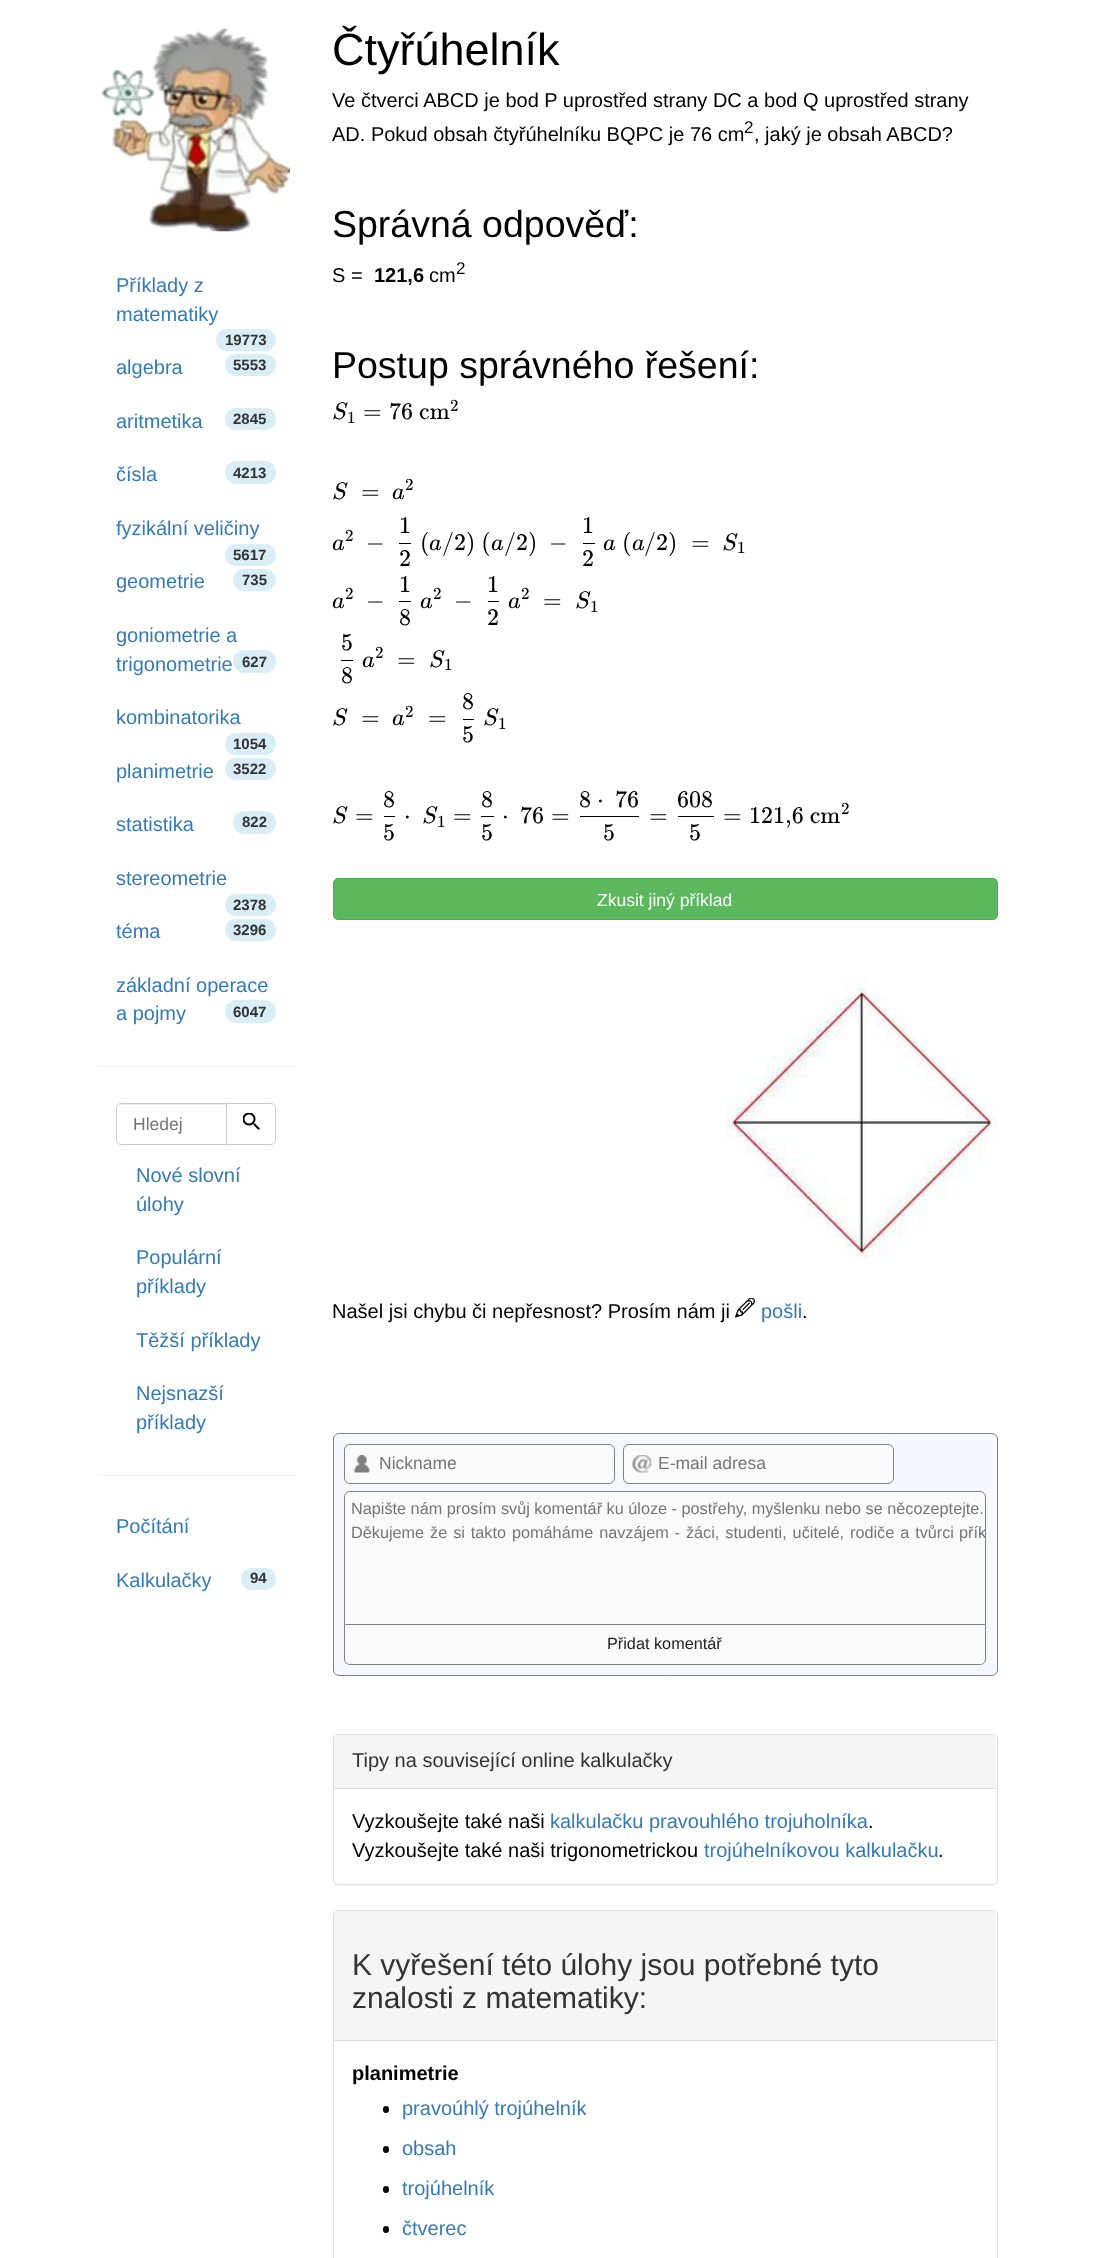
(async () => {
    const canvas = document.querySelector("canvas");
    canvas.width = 1095;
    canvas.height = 2258;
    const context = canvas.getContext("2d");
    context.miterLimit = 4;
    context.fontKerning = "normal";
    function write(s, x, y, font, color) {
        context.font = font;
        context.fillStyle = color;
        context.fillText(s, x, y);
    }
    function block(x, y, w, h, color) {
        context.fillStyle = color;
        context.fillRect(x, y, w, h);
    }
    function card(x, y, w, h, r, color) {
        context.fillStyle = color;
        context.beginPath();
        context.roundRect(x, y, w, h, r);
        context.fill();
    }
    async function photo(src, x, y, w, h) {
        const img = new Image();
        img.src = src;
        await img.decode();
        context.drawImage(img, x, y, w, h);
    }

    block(0, 0, 1095, 2258, "rgb(255, 255, 255)");
    await photo("media/1.png", 102, 28, 188, 204);
    write("Příklady z", 116, 292, "20px Liberation Sans", "rgb(51, 122, 183)");
    write("matematiky", 116, 321, "20px Liberation Sans", "rgb(51, 122, 183)");
    card(216, 329, 60, 22, 11, "rgb(217, 237, 247)");
    write("19773", 225, 345, "bold 15px Liberation Sans", "rgb(51, 51, 51)");
    write("algebra", 116, 374, "20px Liberation Sans", "rgb(51, 122, 183)");
    card(225, 354, 51, 22, 11, "rgb(217, 237, 247)");
    write("5553", 233, 370, "bold 15px Liberation Sans", "rgb(51, 51, 51)");
    write("aritmetika", 116, 428, "20px Liberation Sans", "rgb(51, 122, 183)");
    card(225, 408, 51, 22, 11, "rgb(217, 237, 247)");
    write("2845", 233, 424, "bold 15px Liberation Sans", "rgb(51, 51, 51)");
    write("čísla", 116, 481, "20px Liberation Sans", "rgb(51, 122, 183)");
    card(225, 461, 51, 23, 11.5, "rgb(217, 237, 247)");
    write("4213", 233, 478, "bold 15px Liberation Sans", "rgb(51, 51, 51)");
    write("fyzikální veličiny", 116, 535, "20px Liberation Sans", "rgb(51, 122, 183)");
    card(225, 544, 51, 22, 11, "rgb(217, 237, 247)");
    write("5617", 233, 560, "bold 15px Liberation Sans", "rgb(51, 51, 51)");
    write("geometrie", 116, 588, "20px Liberation Sans", "rgb(51, 122, 183)");
    card(233, 569, 43, 22, 11, "rgb(217, 237, 247)");
    write("735", 242, 585, "bold 15px Liberation Sans", "rgb(51, 51, 51)");
    write("goniometrie a", 116, 642, "20px Liberation Sans", "rgb(51, 122, 183)");
    write("trigonometrie", 116, 671, "20px Liberation Sans", "rgb(51, 122, 183)");
    card(233, 650, 43, 23, 11.5, "rgb(217, 237, 247)");
    write("627", 242, 667, "bold 15px Liberation Sans", "rgb(51, 51, 51)");
    write("kombinatorika", 116, 724, "20px Liberation Sans", "rgb(51, 122, 183)");
    card(225, 733, 51, 22, 11, "rgb(217, 237, 247)");
    write("1054", 233, 749, "bold 15px Liberation Sans", "rgb(51, 51, 51)");
    write("planimetrie", 116, 778, "20px Liberation Sans", "rgb(51, 122, 183)");
    card(225, 758, 51, 22, 11, "rgb(217, 237, 247)");
    write("3522", 233, 774, "bold 15px Liberation Sans", "rgb(51, 51, 51)");
    write("statistika", 116, 831, "20px Liberation Sans", "rgb(51, 122, 183)");
    card(233, 811, 43, 23, 11.5, "rgb(217, 237, 247)");
    write("822", 242, 827, "bold 15px Liberation Sans", "rgb(51, 51, 51)");
    write("stereometrie", 116, 885, "20px Liberation Sans", "rgb(51, 122, 183)");
    card(225, 894, 51, 22, 11, "rgb(217, 237, 247)");
    write("2378", 233, 910, "bold 15px Liberation Sans", "rgb(51, 51, 51)");
    write("téma", 116, 938, "20px Liberation Sans", "rgb(51, 122, 183)");
    card(225, 919, 51, 22, 11, "rgb(217, 237, 247)");
    write("3296", 233, 935, "bold 15px Liberation Sans", "rgb(51, 51, 51)");
    write("základní operace", 116, 992, "20px Liberation Sans", "rgb(51, 122, 183)");
    write("a pojmy", 116, 1020, "20px Liberation Sans", "rgb(51, 122, 183)");
    card(225, 1000, 51, 23, 11.5, "rgb(217, 237, 247)");
    write("6047", 233, 1017, "bold 15px Liberation Sans", "rgb(51, 51, 51)");
    block(98, 1066, 197, 1, "rgb(238, 238, 238)");
    context.fillStyle = "rgb(236, 236, 236)";
    context.beginPath();
    context.moveTo(121, 1105);
    context.lineTo(226, 1105);
    context.lineTo(226, 1104);
    context.lineTo(122, 1104);
    context.bezierCurveTo(120, 1104, 118, 1106, 118, 1108);
    context.lineTo(118, 1109);
    context.bezierCurveTo(118, 1107, 119, 1105, 121, 1105);
    context.closePath();
    context.fill();
    context.beginPath();
    context.roundRect(116.5, 1103.5, 111, 41, [4.5, 0, 0, 4.5]);
    context.strokeStyle = "rgb(204, 204, 204)";
    context.stroke();
    write("Hledej", 133, 1130, "17.5px Liberation Sans", "rgb(117, 117, 117)");
    context.fillStyle = "rgb(255, 255, 255)";
    context.beginPath();
    context.roundRect(226.5, 1103.5, 49, 41, [0, 4.5, 4.5, 0]);
    context.fill();
    context.stroke();
    await photo("media/2.png", 243, 1113, 17, 17);
    write("Nové slovní", 136, 1182, "20px Liberation Sans", "rgb(51, 122, 183)");
    write("úlohy", 136, 1211, "20px Liberation Sans", "rgb(51, 122, 183)");
    write("Populární", 136, 1264, "20px Liberation Sans", "rgb(51, 122, 183)");
    write("příklady", 136, 1293, "20px Liberation Sans", "rgb(51, 122, 183)");
    write("Těžší příklady", 136, 1347, "20px Liberation Sans", "rgb(51, 122, 183)");
    write("Nejsnazší", 136, 1400, "20px Liberation Sans", "rgb(51, 122, 183)");
    write("příklady", 136, 1429, "20px Liberation Sans", "rgb(51, 122, 183)");
    block(98, 1475, 197, 1, "rgb(238, 238, 238)");
    write("Počítání", 116, 1533, "20px Liberation Sans", "rgb(51, 122, 183)");
    write("Kalkulačky", 116, 1587, "20px Liberation Sans", "rgb(51, 122, 183)");
    card(241, 1568, 35, 22, 11, "rgb(217, 237, 247)");
    write("94", 250, 1583, "bold 15px Liberation Sans", "rgb(51, 51, 51)");
    write("Čtyřúhelník", 332, 65, "45px Liberation Sans", "rgb(0, 0, 0)");
    write("Ve čtverci ABCD je bod P uprostřed strany DC a bod Q uprostřed strany", 332, 107, "20px Liberation Sans", "rgb(0, 0, 0)");
    write("AD. Pokud obsah čtyřúhelníku BQPC je 76 cm", 332, 141, "20px Liberation Sans", "rgb(0, 0, 0)");
    write("2", 744, 133, "17px Liberation Sans", "rgb(0, 0, 0)");
    write(", jaký je obsah ABCD?", 754, 141, "20px Liberation Sans", "rgb(0, 0, 0)");
    write("Správná odpověď:", 332, 237, "37.5px Liberation Sans", "rgb(0, 0, 0)");
    write("S =", 332, 282, "20px Liberation Sans", "rgb(0, 0, 0)");
    write("121,6", 374, 282, "bold 20px Liberation Sans", "rgb(0, 0, 0)");
    write("cm", 429, 282, "20px Liberation Sans", "rgb(0, 0, 0)");
    write("2", 456, 274, "17px Liberation Sans", "rgb(0, 0, 0)");
    write("Postup správného řešení:", 332, 378, "37.5px Liberation Sans", "rgb(0, 0, 0)");
    write("S", 332, 419, "italic 24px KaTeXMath", "rgb(0, 0, 0)");
    write("1", 347, 423, "17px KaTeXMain", "rgb(0, 0, 0)");
    write("=", 363, 419, "24px KaTeXMain", "rgb(0, 0, 0)");
    write("76 cm", 389, 419, "24px KaTeXMain", "rgb(0, 0, 0)");
    write("2", 450, 411, "17px KaTeXMain", "rgb(0, 0, 0)");
    write("S", 332, 499, "italic 24px KaTeXMath", "rgb(0, 0, 0)");
    write("=", 361, 499, "24px KaTeXMain", "rgb(0, 0, 0)");
    write("2", 405, 490, "17px KaTeXMain", "rgb(0, 0, 0)");
    write("a", 392, 499, "italic 24px KaTeXMath", "rgb(0, 0, 0)");
    write("2", 345, 541, "17px KaTeXMain", "rgb(0, 0, 0)");
    write("a", 332, 550, "italic 24px KaTeXMath", "rgb(0, 0, 0)");
    write("−", 366, 550, "24px KaTeXMain", "rgb(0, 0, 0)");
    write("1", 399, 533, "24px KaTeXMain", "rgb(0, 0, 0)");
    block(399, 543, 12, 1, "rgb(0, 0, 0)");
    write("2", 399, 566, "24px KaTeXMain", "rgb(0, 0, 0)");
    write("(", 420, 550, "24px KaTeXMain", "rgb(0, 0, 0)");
    write("a", 429, 550, "italic 24px KaTeXMath", "rgb(0, 0, 0)");
    write("/2) (", 442, 550, "24px KaTeXMain", "rgb(0, 0, 0)");
    write("a", 491, 550, "italic 24px KaTeXMath", "rgb(0, 0, 0)");
    write("/2)", 504, 550, "24px KaTeXMain", "rgb(0, 0, 0)");
    write("−", 549, 550, "24px KaTeXMain", "rgb(0, 0, 0)");
    write("1", 582, 533, "24px KaTeXMain", "rgb(0, 0, 0)");
    block(583, 543, 12, 1, "rgb(0, 0, 0)");
    write("2", 582, 566, "24px KaTeXMain", "rgb(0, 0, 0)");
    write("a", 603, 550, "italic 24px KaTeXMath", "rgb(0, 0, 0)");
    write("(", 622, 550, "24px KaTeXMain", "rgb(0, 0, 0)");
    write("a", 632, 550, "italic 24px KaTeXMath", "rgb(0, 0, 0)");
    write("/2)", 644, 550, "24px KaTeXMain", "rgb(0, 0, 0)");
    write("=", 691, 550, "24px KaTeXMain", "rgb(0, 0, 0)");
    write("S", 722, 550, "italic 24px KaTeXMath", "rgb(0, 0, 0)");
    write("1", 737, 553, "17px KaTeXMain", "rgb(0, 0, 0)");
    write("2", 345, 599, "17px KaTeXMain", "rgb(0, 0, 0)");
    write("a", 332, 608, "italic 24px KaTeXMath", "rgb(0, 0, 0)");
    write("−", 366, 608, "24px KaTeXMain", "rgb(0, 0, 0)");
    write("1", 399, 592, "24px KaTeXMain", "rgb(0, 0, 0)");
    block(399, 601, 12, 1, "rgb(0, 0, 0)");
    write("8", 399, 625, "24px KaTeXMain", "rgb(0, 0, 0)");
    write("2", 433, 599, "17px KaTeXMain", "rgb(0, 0, 0)");
    write("a", 420, 608, "italic 24px KaTeXMath", "rgb(0, 0, 0)");
    write("−", 454, 608, "24px KaTeXMain", "rgb(0, 0, 0)");
    write("1", 487, 592, "24px KaTeXMain", "rgb(0, 0, 0)");
    block(488, 601, 11, 1, "rgb(0, 0, 0)");
    write("2", 487, 625, "24px KaTeXMain", "rgb(0, 0, 0)");
    write("2", 521, 599, "17px KaTeXMain", "rgb(0, 0, 0)");
    write("a", 508, 608, "italic 24px KaTeXMath", "rgb(0, 0, 0)");
    write("=", 543, 608, "24px KaTeXMain", "rgb(0, 0, 0)");
    write("S", 575, 608, "italic 24px KaTeXMath", "rgb(0, 0, 0)");
    write("1", 590, 612, "17px KaTeXMain", "rgb(0, 0, 0)");
    write("5", 341, 650, "24px KaTeXMain", "rgb(0, 0, 0)");
    block(341, 660, 12, 1, "rgb(0, 0, 0)");
    write("8", 341, 683, "24px KaTeXMain", "rgb(0, 0, 0)");
    write("2", 375, 658, "17px KaTeXMain", "rgb(0, 0, 0)");
    write("a", 362, 667, "italic 24px KaTeXMath", "rgb(0, 0, 0)");
    write("=", 397, 667, "24px KaTeXMain", "rgb(0, 0, 0)");
    write("S", 429, 667, "italic 24px KaTeXMath", "rgb(0, 0, 0)");
    write("1", 444, 670, "17px KaTeXMain", "rgb(0, 0, 0)");
    write("S", 332, 725, "italic 24px KaTeXMath", "rgb(0, 0, 0)");
    write("=", 361, 725, "24px KaTeXMain", "rgb(0, 0, 0)");
    write("2", 405, 717, "17px KaTeXMain", "rgb(0, 0, 0)");
    write("a", 392, 725, "italic 24px KaTeXMath", "rgb(0, 0, 0)");
    write("=", 428, 725, "24px KaTeXMain", "rgb(0, 0, 0)");
    write("8", 462, 709, "24px KaTeXMain", "rgb(0, 0, 0)");
    block(463, 719, 11, 1, "rgb(0, 0, 0)");
    write("5", 462, 742, "24px KaTeXMain", "rgb(0, 0, 0)");
    write("S", 483, 725, "italic 24px KaTeXMath", "rgb(0, 0, 0)");
    write("1", 498, 729, "17px KaTeXMain", "rgb(0, 0, 0)");
    write("S", 332, 823, "italic 24px KaTeXMath", "rgb(0, 0, 0)");
    write("=", 355, 823, "24px KaTeXMain", "rgb(0, 0, 0)");
    write("8", 383, 807, "24px KaTeXMain", "rgb(0, 0, 0)");
    block(384, 816, 11, 1, "rgb(0, 0, 0)");
    write("5", 383, 840, "24px KaTeXMain", "rgb(0, 0, 0)");
    write("⋅", 404, 823, "24px KaTeXMain", "rgb(0, 0, 0)");
    write("S", 422, 823, "italic 24px KaTeXMath", "rgb(0, 0, 0)");
    write("1", 437, 827, "17px KaTeXMain", "rgb(0, 0, 0)");
    write("=", 453, 823, "24px KaTeXMain", "rgb(0, 0, 0)");
    write("8", 481, 807, "24px KaTeXMain", "rgb(0, 0, 0)");
    block(481, 816, 13, 1, "rgb(0, 0, 0)");
    write("5", 481, 840, "24px KaTeXMain", "rgb(0, 0, 0)");
    write("⋅", 502, 823, "24px KaTeXMain", "rgb(0, 0, 0)");
    write("76", 520, 823, "24px KaTeXMain", "rgb(0, 0, 0)");
    write("=", 551, 823, "24px KaTeXMain", "rgb(0, 0, 0)");
    write("8", 579, 807, "24px KaTeXMain", "rgb(0, 0, 0)");
    write("⋅", 597, 807, "24px KaTeXMain", "rgb(0, 0, 0)");
    write("76", 615, 807, "24px KaTeXMain", "rgb(0, 0, 0)");
    block(580, 816, 59, 1, "rgb(0, 0, 0)");
    write("5", 603, 840, "24px KaTeXMain", "rgb(0, 0, 0)");
    write("=", 649, 823, "24px KaTeXMain", "rgb(0, 0, 0)");
    write("608", 677, 807, "24px KaTeXMain", "rgb(0, 0, 0)");
    block(678, 816, 36, 1, "rgb(0, 0, 0)");
    write("5", 689, 840, "24px KaTeXMain", "rgb(0, 0, 0)");
    write("=", 723, 823, "24px KaTeXMain", "rgb(0, 0, 0)");
    write("121,6 cm", 749, 823, "24px KaTeXMain", "rgb(0, 0, 0)");
    write("2", 841, 814, "17px KaTeXMain", "rgb(0, 0, 0)");
    context.fillStyle = "rgb(92, 184, 92)";
    context.beginPath();
    context.roundRect(333.5, 878.5, 664, 41, 4.5);
    context.fill();
    context.strokeStyle = "rgb(76, 174, 76)";
    context.stroke();
    write("Zkusit jiný příklad", 597, 906, "17.5px Liberation Sans", "rgb(255, 255, 255)");
    await photo("media/3.png", 726, 977, 272, 281);
    write("Našel jsi chybu či nepřesnost? Prosím nám ji", 332, 1318, "20px Liberation Sans", "rgb(0, 0, 0)");
    await photo("media/4.png", 735, 1298, 20, 20);
    write("pošli", 761, 1318, "20px Liberation Sans", "rgb(51, 122, 183)");
    write(".", 802, 1318, "20px Liberation Sans", "rgb(0, 0, 0)");
    context.fillStyle = "rgb(246, 248, 255)";
    context.beginPath();
    context.roundRect(333.5, 1433.5, 664, 242, 5.5);
    context.fill();
    context.strokeStyle = "rgb(128, 128, 128)";
    context.stroke();
    card(344, 1444, 271, 40, 6, "rgb(250, 250, 250)");
    await photo("media/5.png", 353, 1455, 17, 18);
    context.beginPath();
    context.roundRect(344.5, 1444.5, 270, 39, 5.5);
    context.stroke();
    write("Nickname", 379, 1469, "17.5px Liberation Sans", "rgb(117, 117, 117)");
    card(623, 1444, 271, 40, 6, "rgb(250, 250, 250)");
    await photo("media/6.png", 632, 1455, 20, 18);
    context.beginPath();
    context.roundRect(623.5, 1444.5, 270, 39, 5.5);
    context.stroke();
    write("E-mail adresa", 658, 1469, "17.5px Liberation Sans", "rgb(117, 117, 117)");
    context.fillStyle = "rgb(250, 250, 250)";
    context.beginPath();
    context.roundRect(344.5, 1491.5, 641, 133, [5.5, 5.5, 0, 0]);
    context.fill();
    context.stroke();
    write("Napište nám prosím svůj komentář ku úloze - postřehy, myšlenku nebo se něcozeptejte.", 351, 1514, "16.25px Liberation Sans", "rgb(117, 117, 117)");
    context.wordSpacing = "1.4px";
    write("Děkujeme že si takto pomáháme navzájem - žáci, studenti, učitelé, rodiče a tvůrci", 351, 1538, "16.25px Liberation Sans", "rgb(117, 117, 117)");
    context.save();
    context.beginPath();
    context.roundRect(345, 1493, 640, 131, [5, 5, 0, 0]);
    context.clip();
    context.wordSpacing = "0px";
    write("přík", 959, 1538, "16.25px Liberation Sans", "rgb(117, 117, 117)");
    context.restore();
    context.fillStyle = "rgb(250, 250, 250)";
    context.beginPath();
    context.roundRect(344, 1625, 642, 40, [0, 0, 6, 6]);
    context.fill();
    context.fillStyle = "rgb(128, 128, 128)";
    context.beginPath();
    context.moveTo(344, 1625);
    context.lineTo(986, 1625);
    context.lineTo(986, 1659);
    context.bezierCurveTo(986, 1662, 983, 1665, 980, 1665);
    context.lineTo(350, 1665);
    context.bezierCurveTo(347, 1665, 344, 1662, 344, 1659);
    context.closePath();
    context.moveTo(345, 1625);
    context.lineTo(985, 1625);
    context.lineTo(985, 1659);
    context.bezierCurveTo(985, 1662, 983, 1664, 980, 1664);
    context.lineTo(350, 1664);
    context.bezierCurveTo(347, 1664, 345, 1662, 345, 1659);
    context.closePath();
    context.fill("evenodd");
    context.wordSpacing = "0px";
    write("Přidat komentář", 607, 1649, "16.25px Liberation Sans", "rgb(34, 34, 34)");
    context.fillStyle = "rgba(0, 0, 0, 0.05)";
    context.filter = "blur(0.5px)";
    context.beginPath();
    context.roundRect(333, 1735, 665, 151, 5);
    context.fill();
    context.filter = "none";
    context.fillStyle = "rgb(255, 255, 255)";
    context.beginPath();
    context.roundRect(333.5, 1734.5, 664, 150, 4.5);
    context.fill();
    context.strokeStyle = "rgb(221, 221, 221)";
    context.stroke();
    context.fillStyle = "rgb(245, 245, 245)";
    context.beginPath();
    context.roundRect(334, 1735, 662, 54, [4, 4, 0, 0]);
    context.fill();
    block(334, 1788, 662, 1, "rgb(221, 221, 221)");
    write("Tipy na související online kalkulačky", 352, 1767, "20px Liberation Sans", "rgb(51, 51, 51)");
    write("Vyzkoušejte také naši", 352, 1828, "20px Liberation Sans", "rgb(0, 0, 0)");
    write("kalkulačku pravouhlého trojuholníka", 550, 1828, "20px Liberation Sans", "rgb(51, 122, 183)");
    write(".", 868, 1828, "20px Liberation Sans", "rgb(0, 0, 0)");
    write("Vyzkoušejte také naši trigonometrickou", 352, 1857, "20px Liberation Sans", "rgb(0, 0, 0)");
    write("trojúhelníkovou kalkulačku", 704, 1857, "20px Liberation Sans", "rgb(51, 122, 183)");
    write(".", 938, 1857, "20px Liberation Sans", "rgb(0, 0, 0)");
    context.beginPath();
    context.roundRect(333.5, 1910.5, 664, 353, 4.5);
    context.stroke();
    context.fillStyle = "rgb(245, 245, 245)";
    context.beginPath();
    context.roundRect(334, 1911, 662, 130, [4, 4, 0, 0]);
    context.fill();
    block(334, 2040, 662, 1, "rgb(221, 221, 221)");
    write("K vyřešení této úlohy jsou potřebné tyto", 352, 1975, "30px Liberation Sans", "rgb(51, 51, 51)");
    write("znalosti z matematiky:", 352, 2008, "30px Liberation Sans", "rgb(51, 51, 51)");
    write("planimetrie", 352, 2080, "bold 20px Liberation Sans", "rgb(0, 0, 0)");
    card(383, 2106, 6, 7, 3, "rgb(0, 0, 0)");
    write("pravoúhlý trojúhelník", 402, 2115, "20px Liberation Sans", "rgb(51, 122, 183)");
    card(383, 2146, 6, 7, 3, "rgb(0, 0, 0)");
    write("obsah", 402, 2155, "20px Liberation Sans", "rgb(51, 122, 183)");
    card(383, 2186, 6, 7, 3, "rgb(0, 0, 0)");
    write("trojúhelník", 402, 2195, "20px Liberation Sans", "rgb(51, 122, 183)");
    card(383, 2226, 6, 7, 3, "rgb(0, 0, 0)");
    write("čtverec", 402, 2235, "20px Liberation Sans", "rgb(51, 122, 183)");
})();
